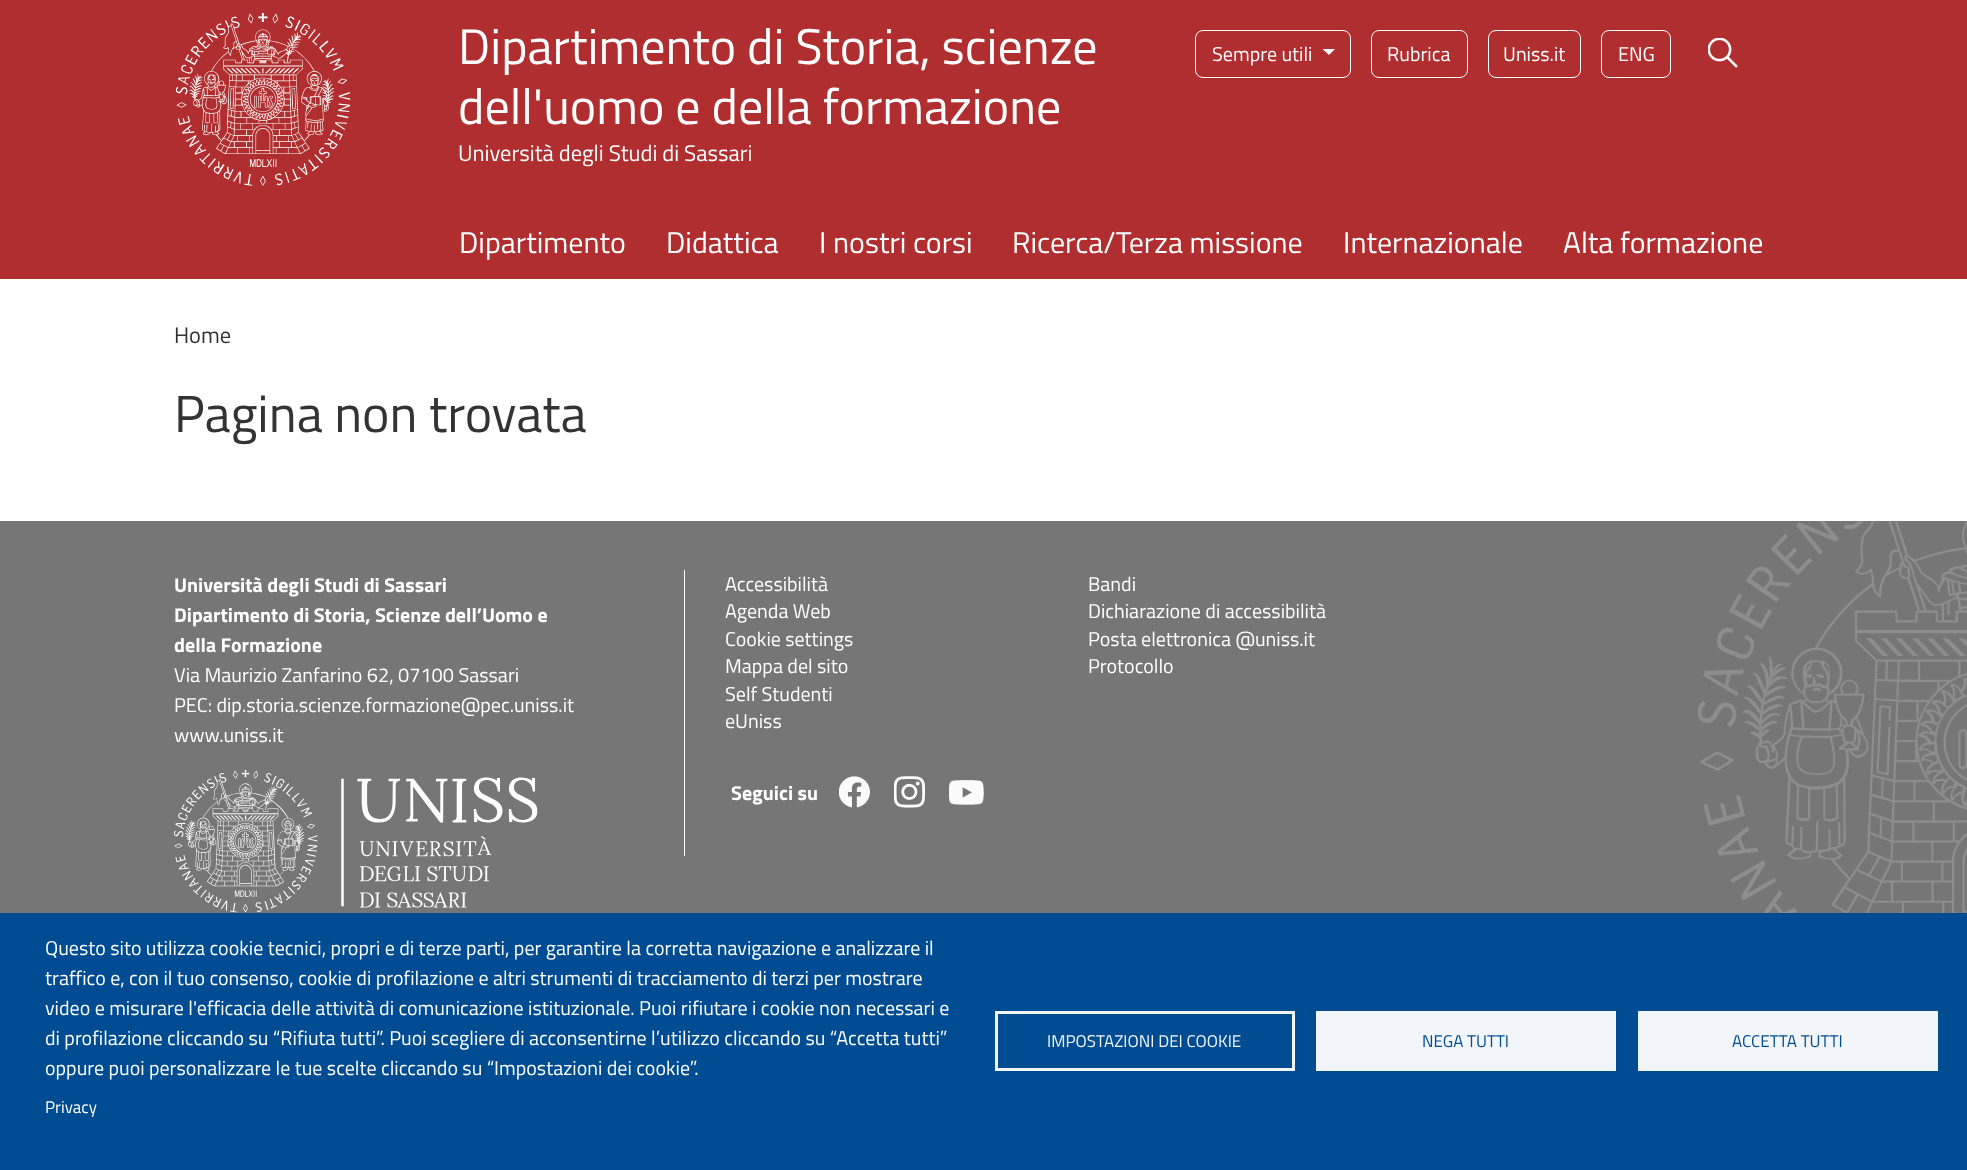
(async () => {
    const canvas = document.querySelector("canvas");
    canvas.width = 1967;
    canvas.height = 1170;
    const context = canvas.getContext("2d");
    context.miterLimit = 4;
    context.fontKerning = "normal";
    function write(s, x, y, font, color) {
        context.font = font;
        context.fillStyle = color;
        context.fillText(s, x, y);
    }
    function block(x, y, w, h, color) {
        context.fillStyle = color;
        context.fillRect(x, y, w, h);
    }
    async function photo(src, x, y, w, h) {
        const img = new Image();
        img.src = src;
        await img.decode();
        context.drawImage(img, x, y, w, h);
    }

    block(0, 0, 1967, 1170, "rgb(255, 255, 255)");
    block(0, 0, 1967, 279, "rgb(176, 46, 47)");
    await photo("media/1.png", 175, 13, 176, 173);
    write("Dipartimento di Storia, scienze", 458, 64, "50px Titillium Web", "rgb(255, 255, 255)");
    write("dell'uomo e della formazione", 458, 124, "50px Titillium Web", "rgb(255, 255, 255)");
    write("Università degli Studi di Sassari", 458, 161, "22.5px Titillium Web", "rgb(255, 255, 255)");
    context.beginPath();
    context.roundRect(1195.5, 30.5, 155, 47, 7.5);
    context.strokeStyle = "rgb(255, 255, 255)";
    context.stroke();
    write("Sempre utili", 1212, 61, "20px Titillium Web", "rgb(255, 255, 255)");
    context.beginPath();
    context.moveTo(1322.5, 49);
    context.lineTo(1335, 49);
    context.lineTo(1329, 55);
    context.closePath();
    context.fill();
    context.beginPath();
    context.roundRect(1371.5, 30.5, 96, 47, 7.5);
    context.stroke();
    write("Rubrica", 1387, 61, "20px Titillium Web", "rgb(255, 255, 255)");
    context.beginPath();
    context.roundRect(1488.5, 30.5, 92, 47, 7.5);
    context.stroke();
    write("Uniss.it", 1503, 61, "20px Titillium Web", "rgb(255, 255, 255)");
    context.beginPath();
    context.roundRect(1601.5, 30.5, 69, 47, 7.5);
    context.stroke();
    write("ENG", 1618, 61, "20px Titillium Web", "rgb(255, 255, 255)");
    await photo("media/2.png", 1708, 38, 30, 30);
    write("Dipartimento", 459, 253, "30px Titillium Web", "rgb(255, 255, 255)");
    write("Didattica", 666, 253, "30px Titillium Web", "rgb(255, 255, 255)");
    write("I nostri corsi", 819, 253, "30px Titillium Web", "rgb(255, 255, 255)");
    write("Ricerca/Terza missione", 1012, 253, "30px Titillium Web", "rgb(255, 255, 255)");
    write("Internazionale", 1343, 253, "30px Titillium Web", "rgb(255, 255, 255)");
    write("Alta formazione", 1563, 253, "30px Titillium Web", "rgb(255, 255, 255)");
    block(0, 913, 1967, 257, "rgb(0, 76, 147)");
    write("Questo sito utilizza cookie tecnici, propri e di terze parti, per garantire la corretta navigazione e analizzare il", 45, 955, "20px Titillium Web", "rgb(255, 255, 255)");
    write("traffico e, con il tuo consenso, cookie di profilazione e altri strumenti di tracciamento di terzi per mostrare", 45, 985, "20px Titillium Web", "rgb(255, 255, 255)");
    write("video e misurare l'efficacia delle attività di comunicazione istituzionale. Puoi rifiutare i cookie non necessari e", 45, 1015, "20px Titillium Web", "rgb(255, 255, 255)");
    write("di profilazione cliccando su “Rifiuta tutti”. Puoi scegliere di acconsentirne l’utilizzo cliccando su “Accetta tutti”", 45, 1045, "20px Titillium Web", "rgb(255, 255, 255)");
    write("oppure puoi personalizzare le tue scelte cliccando su “Impostazioni dei cookie”.", 45, 1075, "20px Titillium Web", "rgb(255, 255, 255)");
    write("Privacy", 45, 1113, "17px Titillium Web", "rgb(255, 255, 255)");
    context.strokeStyle = "rgb(242, 246, 250)";
    context.lineWidth = 3;
    context.strokeRect(996.5, 1012.5, 297, 57);
    write("IMPOSTAZIONI DEI COOKIE", 1047, 1047, "17px Titillium Web", "rgb(242, 246, 250)");
    block(1316, 1011, 300, 60, "rgb(242, 246, 250)");
    write("NEGA TUTTI", 1422, 1047, "17px Titillium Web", "rgb(0, 76, 147)");
    block(1638, 1011, 300, 60, "rgb(242, 246, 250)");
    write("ACCETTA TUTTI", 1732, 1047, "17px Titillium Web", "rgb(0, 76, 147)");
    write("Home", 174, 343, "22.5px Titillium Web", "rgb(51, 51, 51)");
    write("Pagina non trovata", 174, 432, "52px Titillium Web", "rgb(51, 51, 51)");
    block(0, 521, 1967, 392, "rgb(118, 118, 118)");
    write("Università degli Studi di Sassari", 174, 592, "bold 20px Titillium Web", "rgb(255, 255, 255)");
    write("Dipartimento di Storia, Scienze dell’Uomo e", 174, 622, "bold 20px Titillium Web", "rgb(255, 255, 255)");
    write("della Formazione", 174, 652, "bold 20px Titillium Web", "rgb(255, 255, 255)");
    write("Via Maurizio Zanfarino 62, 07100 Sassari", 174, 682, "20px Titillium Web", "rgb(255, 255, 255)");
    write("PEC: dip.storia.scienze.formazione@pec.uniss.it", 174, 712, "20px Titillium Web", "rgb(255, 255, 255)");
    write("www.uniss.it", 174, 742, "20px Titillium Web", "rgb(255, 255, 255)");
    await photo("media/3.png", 174, 770, 364, 143);
    block(684, 570, 1, 286, "rgb(255, 255, 255)");
    write("Accessibilità", 725, 591, "20px Titillium Web", "rgb(255, 255, 255)");
    write("Agenda Web", 725, 618, "20px Titillium Web", "rgb(255, 255, 255)");
    write("Cookie settings", 725, 646, "20px Titillium Web", "rgb(255, 255, 255)");
    write("Mappa del sito", 725, 673, "20px Titillium Web", "rgb(255, 255, 255)");
    write("Self Studenti", 725, 701, "20px Titillium Web", "rgb(255, 255, 255)");
    write("eUniss", 725, 728, "20px Titillium Web", "rgb(255, 255, 255)");
    write("Bandi", 1088, 591, "20px Titillium Web", "rgb(255, 255, 255)");
    write("Dichiarazione di accessibilità", 1088, 618, "20px Titillium Web", "rgb(255, 255, 255)");
    write("Posta elettronica @uniss.it", 1088, 646, "20px Titillium Web", "rgb(255, 255, 255)");
    write("Protocollo", 1088, 673, "20px Titillium Web", "rgb(255, 255, 255)");
    write("Seguici su", 731, 800, "bold 20px Titillium Web", "rgb(255, 255, 255)");
    await photo("media/4.png", 839, 776, 31, 32);
    await photo("media/5.png", 894, 776, 31, 32);
    await photo("media/6.png", 949, 780, 35, 25);
    await photo("media/7.png", 1698, 521, 269, 392);
})();
